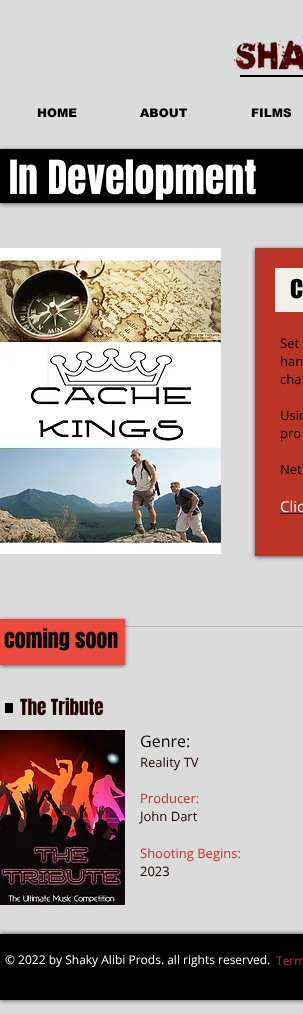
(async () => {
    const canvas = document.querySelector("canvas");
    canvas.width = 303;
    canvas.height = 1014;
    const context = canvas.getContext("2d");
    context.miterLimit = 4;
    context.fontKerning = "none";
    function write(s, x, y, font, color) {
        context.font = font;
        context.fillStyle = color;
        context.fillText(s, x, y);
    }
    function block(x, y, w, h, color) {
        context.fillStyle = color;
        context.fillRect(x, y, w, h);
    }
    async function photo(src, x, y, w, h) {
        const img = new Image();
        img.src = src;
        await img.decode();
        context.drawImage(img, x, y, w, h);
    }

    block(0, 0, 303, 1014, "rgb(219, 219, 219)");
    await photo("media/1.png", 233, 33, 70, 37);
    block(240, 75, 63, 2, "rgb(0, 0, 0)");
    write("HOME", 37, 117, "900 12px arial", "rgb(0, 0, 0)");
    write("ABOUT", 140, 117, "900 12px arial", "rgb(0, 0, 0)");
    write("FILMS", 251, 117, "900 12px arial", "rgb(0, 0, 0)");
    context.fillStyle = "rgba(0, 0, 0, 0.6)";
    context.filter = "blur(2px)";
    context.beginPath();
    context.rect(0, 150, 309, 54);
    context.fill();
    context.filter = "none";
    block(0, 149, 303, 54, "rgb(0, 0, 0)");
    write("In Development", 9, 194, "40px Anton", "rgb(255, 255, 255)");
    await photo("media/2.png", 0, 248, 221, 306);
    context.fillStyle = "rgba(0, 0, 0, 0.6)";
    context.filter = "blur(2px)";
    context.beginPath();
    context.rect(255, 249, 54, 308);
    context.fill();
    context.filter = "none";
    block(255, 248, 48, 308, "rgb(188, 52, 39)");
    block(275, 268, 28, 44, "rgb(240, 239, 232)");
    write("C", 290, 298, "24px 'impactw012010'", "rgb(0, 0, 0)");
    write("Set", 280, 348, "13px Open Sans", "rgb(0, 0, 0)");
    write("han", 280, 366, "13px Open Sans", "rgb(0, 0, 0)");
    write("cha", 280, 384, "13px Open Sans", "rgb(0, 0, 0)");
    write("Usin", 280, 420, "13px Open Sans", "rgb(0, 0, 0)");
    write("pro", 280, 438, "13px Open Sans", "rgb(0, 0, 0)");
    write("Net", 280, 474, "13px Open Sans", "rgb(0, 0, 0)");
    write("Clic", 280, 512, "15px Open Sans", "rgb(255, 255, 255)");
    block(280, 513, 23, 1, "rgb(0, 0, 0)");
    block(125, 626, 178, 1, "rgb(184, 184, 184)");
    context.fillStyle = "rgba(0, 0, 0, 0.6)";
    context.filter = "blur(2px)";
    context.beginPath();
    context.rect(0, 620, 125, 46);
    context.fill();
    context.filter = "none";
    block(0, 619, 125, 46, "rgb(235, 74, 62)");
    write("coming soon", 4, 648, "22px Anton", "rgb(0, 0, 0)");
    block(5, 703, 8, 10, "rgb(0, 0, 0)");
    write("The Tribute", 20, 715, "19px Anton", "rgb(32, 3, 1)");
    await photo("media/3.png", 0, 730, 125, 175);
    write("Genre:", 140, 747, "16px Open Sans", "rgb(0, 0, 0)");
    write("Reality TV", 140, 767, "13px Open Sans", "rgb(32, 3, 1)");
    write("Producer:", 140, 803, "13px Open Sans", "rgb(188, 52, 39)");
    write("John Dart", 140, 821, "13px Open Sans", "rgb(32, 3, 1)");
    write("Shooting Begins:", 140, 858, "13px Open Sans", "rgb(188, 52, 39)");
    write("2023", 140, 876, "13px Open Sans", "rgb(32, 3, 1)");
    context.fillStyle = "rgba(0, 0, 0, 0.7)";
    context.filter = "blur(2.5px)";
    context.beginPath();
    context.rect(0, 934, 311, 66);
    context.fill();
    context.filter = "none";
    block(0, 934, 303, 66, "rgb(0, 0, 0)");
    write("© 2022 by Shaky Alibi Prods. all rights reserved.", 5, 964, "12px Open Sans", "rgb(255, 255, 255)");
    write("Term", 276, 965, "12px Open Sans", "rgb(188, 52, 39)");
})();
